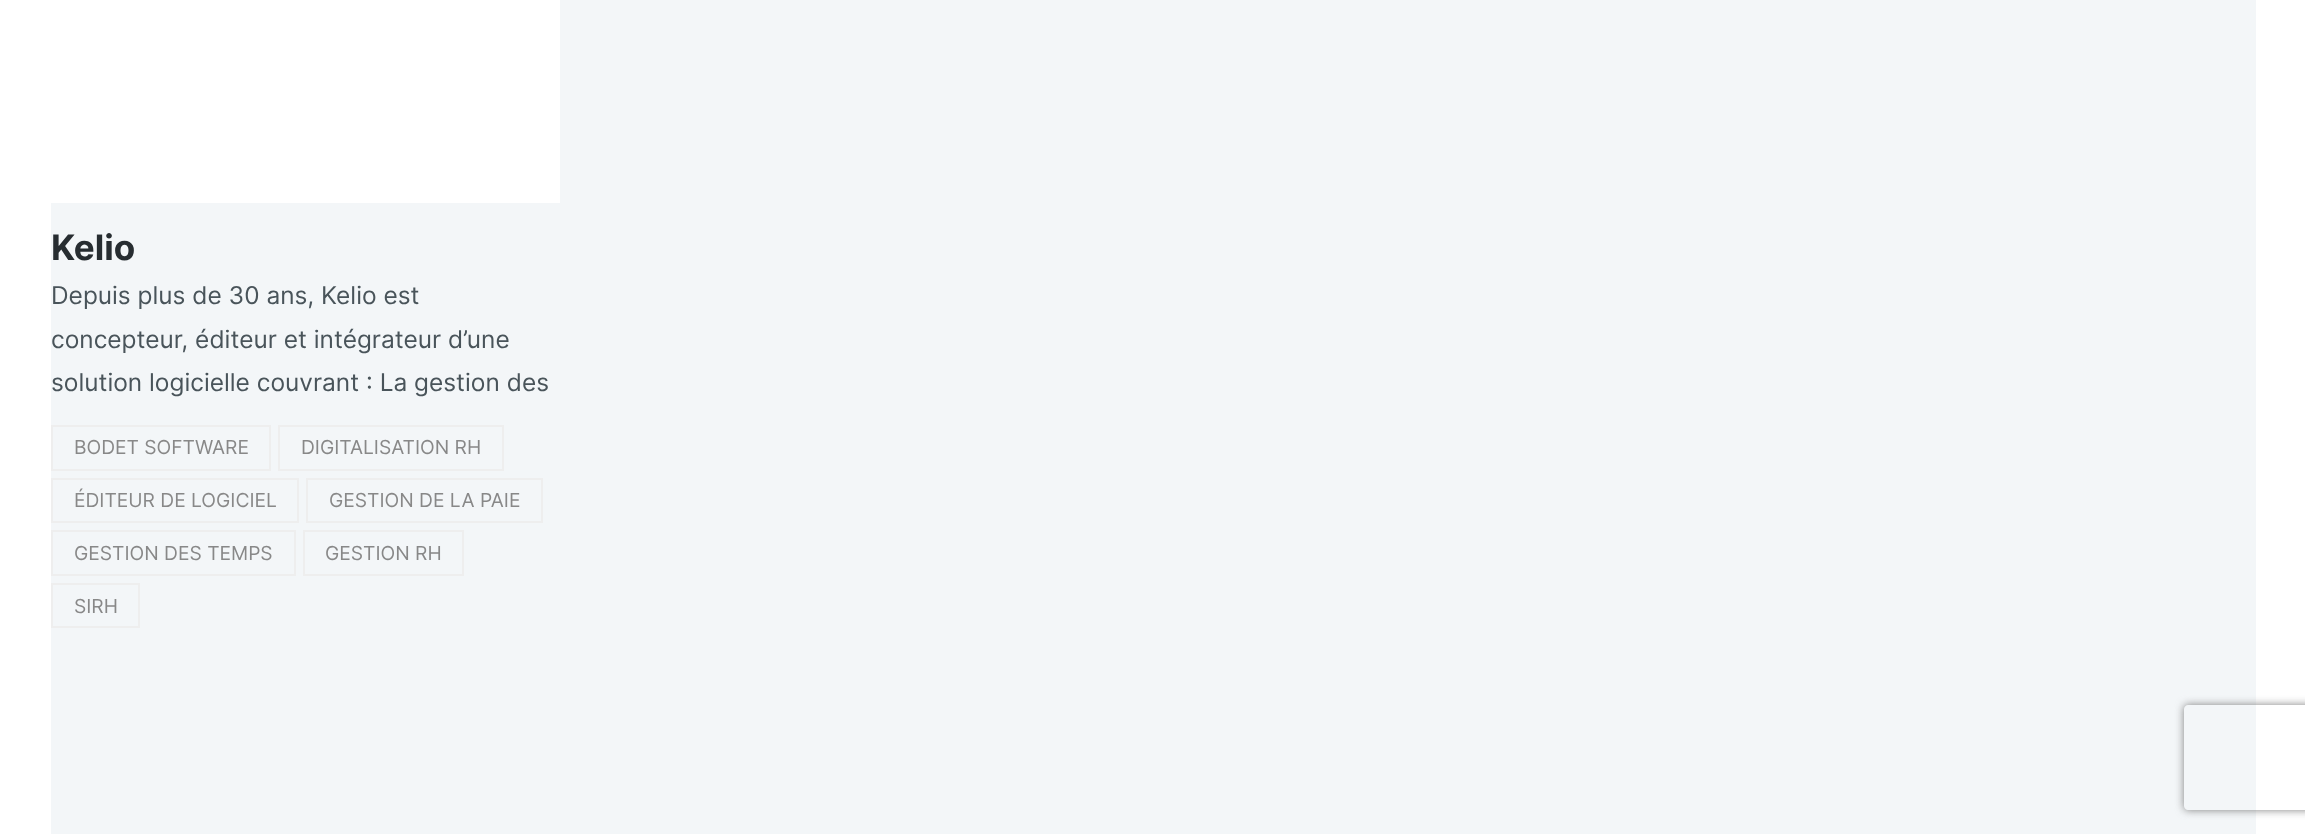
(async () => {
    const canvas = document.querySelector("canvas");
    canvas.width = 2305;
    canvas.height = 834;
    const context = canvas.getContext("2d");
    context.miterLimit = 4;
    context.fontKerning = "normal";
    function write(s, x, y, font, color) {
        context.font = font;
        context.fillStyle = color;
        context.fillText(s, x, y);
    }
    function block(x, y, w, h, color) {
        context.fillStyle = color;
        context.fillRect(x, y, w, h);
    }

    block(0, 0, 2305, 834, "rgb(255, 255, 255)");
    block(51, 0, 2205, 834, "rgb(243, 246, 248)");
    block(51, 0, 509, 203, "rgb(255, 255, 255)");
    write("Kelio", 51, 260, "bold 35px Inter", "rgb(39, 45, 49)");
    write("Depuis plus de 30 ans, Kelio est", 51, 304, "24.5px Inter", "rgb(73, 84, 90)");
    write("concepteur, éditeur et intégrateur d’une", 51, 348, "24.5px Inter", "rgb(73, 84, 90)");
    write("solution logicielle couvrant : La gestion des", 51, 391, "24.5px Inter", "rgb(73, 84, 90)");
    context.strokeStyle = "rgb(238, 238, 238)";
    context.lineWidth = 2;
    context.strokeRect(52, 426, 218, 44);
    write("BODET SOFTWARE", 74, 454, "19.25px Inter", "rgb(136, 136, 136)");
    context.strokeRect(279, 426, 224, 44);
    write("DIGITALISATION RH", 301, 454, "19.25px Inter", "rgb(136, 136, 136)");
    context.strokeRect(52, 479, 246, 43);
    write("ÉDITEUR DE LOGICIEL", 74, 507, "19.25px Inter", "rgb(136, 136, 136)");
    context.strokeRect(307, 479, 235, 43);
    write("GESTION DE LA PAIE", 329, 507, "19.25px Inter", "rgb(136, 136, 136)");
    context.strokeRect(52, 531, 243, 44);
    write("GESTION DES TEMPS", 74, 560, "19.25px Inter", "rgb(136, 136, 136)");
    context.strokeRect(304, 531, 159, 44);
    write("GESTION RH", 325, 560, "19.25px Inter", "rgb(136, 136, 136)");
    context.strokeRect(52, 584, 87, 43);
    write("SIRH", 74, 613, "19.25px Inter", "rgb(136, 136, 136)");
    context.save();
    context.beginPath();
    context.moveTo(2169, 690);
    context.lineTo(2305, 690);
    context.lineTo(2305, 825);
    context.lineTo(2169, 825);
    context.closePath();
    context.moveTo(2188, 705);
    context.lineTo(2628, 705);
    context.bezierCurveTo(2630, 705, 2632, 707, 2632, 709);
    context.lineTo(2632, 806);
    context.bezierCurveTo(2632, 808, 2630, 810, 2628, 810);
    context.lineTo(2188, 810);
    context.bezierCurveTo(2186, 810, 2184, 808, 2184, 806);
    context.lineTo(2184, 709);
    context.bezierCurveTo(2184, 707, 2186, 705, 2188, 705);
    context.closePath();
    context.clip("evenodd");
    context.fillStyle = "rgb(128, 128, 128)";
    context.filter = "blur(4.5px)";
    context.beginPath();
    context.roundRect(2184, 705, 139, 105, 4);
    context.fill();
    context.filter = "none";
    context.restore();
})();
